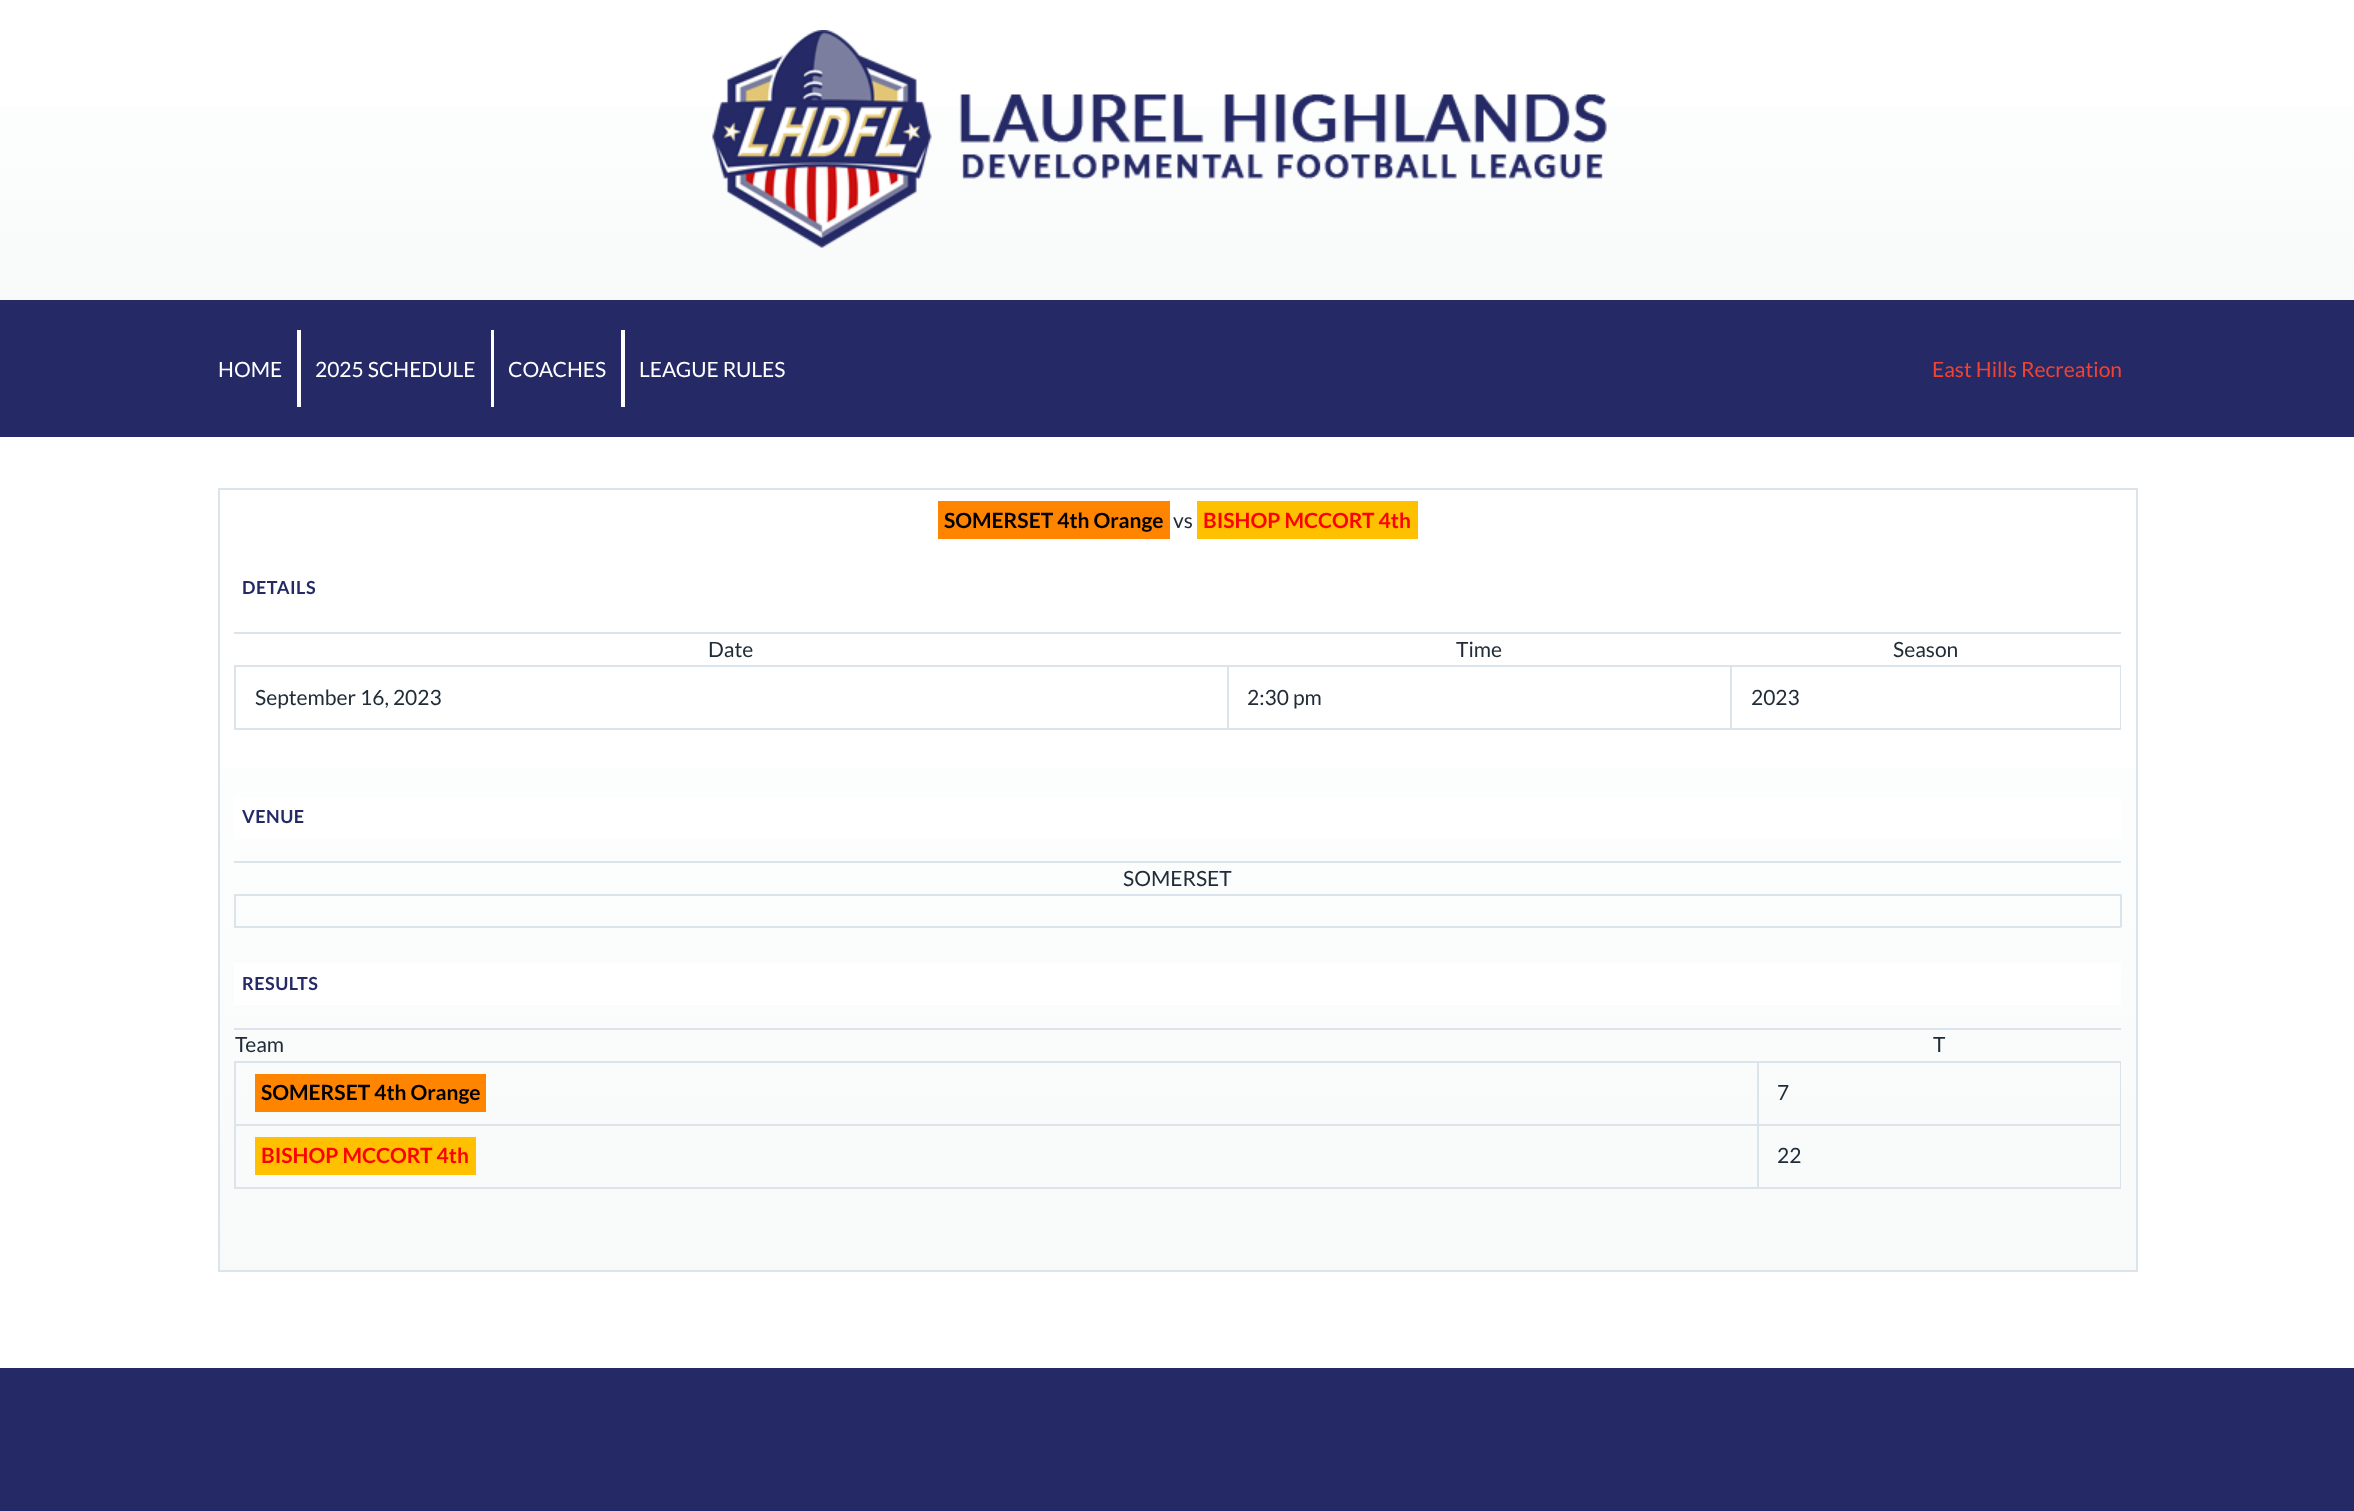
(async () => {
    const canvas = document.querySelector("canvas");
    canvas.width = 2354;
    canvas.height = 1511;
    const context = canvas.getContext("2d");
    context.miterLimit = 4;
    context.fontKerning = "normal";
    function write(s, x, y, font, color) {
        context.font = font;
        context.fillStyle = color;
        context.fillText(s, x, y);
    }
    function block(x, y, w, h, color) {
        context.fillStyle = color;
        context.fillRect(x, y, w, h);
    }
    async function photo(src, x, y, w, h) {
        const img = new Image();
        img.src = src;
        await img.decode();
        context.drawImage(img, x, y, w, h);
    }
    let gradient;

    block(0, 0, 2354, 1511, "rgb(255, 255, 255)");
    gradient = context.createLinearGradient(1178, 0, 1178, 300);
    gradient.addColorStop(0, "rgb(255, 255, 255)");
    gradient.addColorStop(1, "rgb(248, 250, 250)");
    context.fillStyle = gradient;
    context.fillRect(0, 107, 2354, 193);
    await photo("media/1.png", 712, 30, 895, 218);
    block(0, 300, 2354, 137, "rgb(37, 42, 102)");
    block(297, 330, 4, 77, "rgb(255, 255, 255)");
    write("HOME", 218, 377, "21px Lato", "rgb(255, 255, 255)");
    block(491, 330, 3, 77, "rgb(255, 255, 255)");
    write("2025 SCHEDULE", 315, 377, "21px Lato", "rgb(255, 255, 255)");
    block(621, 330, 4, 77, "rgb(255, 255, 255)");
    write("COACHES", 508, 377, "21px Lato", "rgb(255, 255, 255)");
    write("LEAGUE RULES", 639, 377, "21px Lato", "rgb(255, 255, 255)");
    write("East Hills Recreation", 1932, 377, "21px Lato", "rgb(241, 67, 50)");
    gradient = context.createLinearGradient(1178, 489, 1178, 1271);
    gradient.addColorStop(0, "rgb(255, 255, 255)");
    gradient.addColorStop(1, "rgb(248, 250, 250)");
    context.fillStyle = gradient;
    context.fillRect(220, 768, 1916, 502);
    context.strokeStyle = "rgb(219, 228, 235)";
    context.lineWidth = 2;
    context.strokeRect(219, 489, 1918, 782);
    block(938, 501, 232, 38, "rgb(255, 132, 0)");
    write("SOMERSET 4th Orange", 944, 528, "bold 21px Lato", "rgb(0, 0, 0)");
    write("vs", 1173, 528, "21px Lato", "rgb(32, 45, 57)");
    block(1197, 501, 221, 38, "rgb(255, 192, 0)");
    write("BISHOP MCCORT 4th", 1203, 528, "bold 21px Lato", "rgb(255, 0, 0)");
    context.letterSpacing = "0.5px";
    write("DETAILS", 242, 594, "bold 18px Lato", "rgb(37, 42, 102)");
    block(234, 632, 1887, 2, "rgb(219, 228, 235)");
    context.letterSpacing = "0px";
    write("Date", 708, 657, "21px Lato", "rgb(32, 45, 57)");
    write("Time", 1456, 657, "21px Lato", "rgb(32, 45, 57)");
    write("Season", 1893, 657, "21px Lato", "rgb(32, 45, 57)");
    block(234, 665, 1887, 2, "rgb(219, 228, 235)");
    block(234, 728, 1887, 2, "rgb(219, 228, 235)");
    block(234, 665, 2, 64, "rgb(219, 228, 235)");
    write("September 16, 2023", 255, 705, "21px Lato", "rgb(32, 45, 57)");
    block(1227, 665, 2, 64, "rgb(219, 228, 235)");
    write("2:30 pm", 1247, 705, "21px Lato", "rgb(32, 45, 57)");
    block(2120, 665, 1, 64, "rgb(219, 228, 235)");
    block(1730, 665, 2, 64, "rgb(219, 228, 235)");
    write("2023", 1751, 705, "21px Lato", "rgb(32, 45, 57)");
    block(234, 797, 1887, 42, "rgb(255, 255, 255)");
    context.letterSpacing = "0.5px";
    write("VENUE", 242, 823, "bold 18px Lato", "rgb(37, 42, 102)");
    block(234, 861, 1887, 2, "rgb(219, 228, 235)");
    context.letterSpacing = "0px";
    write("SOMERSET", 1123, 886, "21px Lato", "rgb(32, 45, 57)");
    block(234, 894, 1887, 2, "rgb(219, 228, 235)");
    block(234, 926, 1887, 2, "rgb(219, 228, 235)");
    block(2120, 894, 2, 33, "rgb(219, 228, 235)");
    block(234, 894, 2, 33, "rgb(219, 228, 235)");
    block(234, 963, 1887, 42, "rgb(255, 255, 255)");
    context.letterSpacing = "0.5px";
    write("RESULTS", 242, 990, "bold 18px Lato", "rgb(37, 42, 102)");
    block(234, 1028, 1887, 2, "rgb(219, 228, 235)");
    context.letterSpacing = "0px";
    write("Team", 235, 1052, "21px Lato", "rgb(32, 45, 57)");
    write("T", 1933, 1052, "21px Lato", "rgb(32, 45, 57)");
    block(234, 1061, 1887, 2, "rgb(219, 228, 235)");
    block(255, 1074, 231, 38, "rgb(255, 132, 0)");
    write("SOMERSET 4th Orange", 261, 1100, "bold 21px Lato", "rgb(0, 0, 0)");
    write("7", 1777, 1100, "21px Lato", "rgb(32, 45, 57)");
    block(234, 1124, 1887, 2, "rgb(219, 228, 235)");
    block(234, 1187, 1887, 2, "rgb(219, 228, 235)");
    block(234, 1061, 2, 127, "rgb(219, 228, 235)");
    block(255, 1137, 221, 38, "rgb(255, 192, 0)");
    write("BISHOP MCCORT 4th", 261, 1163, "bold 21px Lato", "rgb(255, 0, 0)");
    block(2120, 1061, 1, 127, "rgb(219, 228, 235)");
    block(1757, 1061, 2, 127, "rgb(219, 228, 235)");
    write("22", 1777, 1163, "21px Lato", "rgb(32, 45, 57)");
    block(0, 1368, 2354, 143, "rgb(37, 42, 102)");
})();
